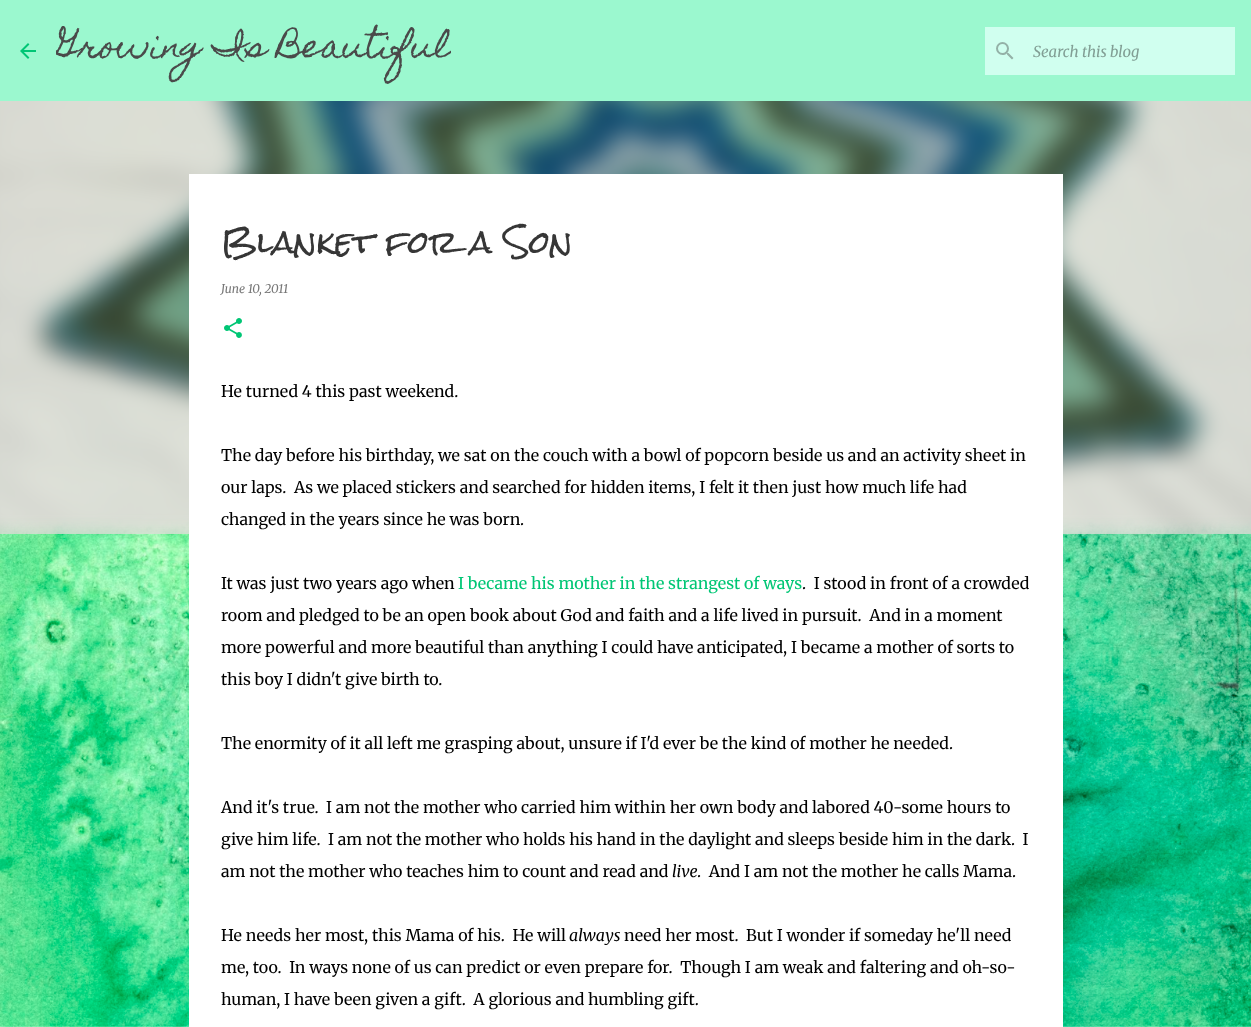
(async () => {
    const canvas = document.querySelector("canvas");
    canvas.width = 1251;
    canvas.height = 1027;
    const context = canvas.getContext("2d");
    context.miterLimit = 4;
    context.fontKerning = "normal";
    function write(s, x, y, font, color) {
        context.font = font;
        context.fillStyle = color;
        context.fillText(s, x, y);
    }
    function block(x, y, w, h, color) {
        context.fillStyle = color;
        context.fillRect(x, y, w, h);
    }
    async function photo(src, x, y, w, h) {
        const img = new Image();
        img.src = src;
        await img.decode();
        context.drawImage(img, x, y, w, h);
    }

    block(0, 0, 1251, 1027, "rgb(255, 255, 255)");
    await photo("media/1.png", 0, 517, 1251, 510);
    block(0, 0, 1251, 101, "rgb(155, 248, 207)");
    await photo("media/2.png", 20, 43, 16, 16);
    context.save();
    context.beginPath();
    context.rect(56, 16, 395, 69);
    context.clip();
    write("Growing Is Beautiful", 56, 57, "32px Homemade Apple", "rgb(74, 74, 74)");
    context.restore();
    block(985, 27, 250, 48, "rgb(208, 255, 239)");
    await photo("media/3.png", 996, 42, 18, 18);
    write("Search this blog", 1033, 57, "italic 15px Merriweather", "rgb(129, 158, 148)");
    await photo("media/5.png", 0, 101, 1251, 433);
    block(189, 174, 874, 853, "rgb(255, 255, 255)");
    write("Blanket for a Son", 221, 254, "30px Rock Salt", "rgb(54, 54, 54)");
    write("June 10, 2011", 221, 293, "italic 12px Merriweather", "rgb(120, 120, 120)");
    await photo("media/4.png", 224, 318, 18, 20);
    write("He turned 4 this past weekend.", 221, 397, "300 16px Merriweather", "rgb(0, 0, 0)");
    write("The day before his birthday, we sat on the couch with a bowl of popcorn beside us and an activity sheet in", 221, 461, "300 16px Merriweather", "rgb(0, 0, 0)");
    write("our laps.  As we placed stickers and searched for hidden items, I felt it then just how much life had", 221, 493, "300 16px Merriweather", "rgb(0, 0, 0)");
    write("changed in the years since he was born.", 221, 525, "300 16px Merriweather", "rgb(0, 0, 0)");
    write("It was just two years ago when", 221, 589, "300 16px Merriweather", "rgb(0, 0, 0)");
    write("I became his mother in the strangest of ways", 458, 589, "300 16px Merriweather", "rgb(0, 198, 117)");
    write(".  I stood in front of a crowded", 802, 589, "300 16px Merriweather", "rgb(0, 0, 0)");
    write("room and pledged to be an open book about God and faith and a life lived in pursuit.  And in a moment", 221, 621, "300 16px Merriweather", "rgb(0, 0, 0)");
    write("more powerful and more beautiful than anything I could have anticipated, I became a mother of sorts to", 221, 653, "300 16px Merriweather", "rgb(0, 0, 0)");
    write("this boy I didn't give birth to.", 221, 685, "300 16px Merriweather", "rgb(0, 0, 0)");
    write("The enormity of it all left me grasping about, unsure if I'd ever be the kind of mother he needed.", 221, 749, "300 16px Merriweather", "rgb(0, 0, 0)");
    write("And it's true.  I am not the mother who carried him within her own body and labored 40-some hours to", 221, 813, "300 16px Merriweather", "rgb(0, 0, 0)");
    write("give him life.  I am not the mother who holds his hand in the daylight and sleeps beside him in the dark.  I", 221, 845, "300 16px Merriweather", "rgb(0, 0, 0)");
    write("am not the mother who teaches him to count and read and", 221, 877, "300 16px Merriweather", "rgb(0, 0, 0)");
    write("live", 672, 877, "italic 16px Merriweather", "rgb(0, 0, 0)");
    write(".  And I am not the mother he calls Mama.", 697, 877, "300 16px Merriweather", "rgb(0, 0, 0)");
    write("He needs her most, this Mama of his.  He will", 221, 941, "300 16px Merriweather", "rgb(0, 0, 0)");
    write("always", 569, 941, "italic 16px Merriweather", "rgb(0, 0, 0)");
    write("need her most.  But I wonder if someday he'll need", 624, 941, "300 16px Merriweather", "rgb(0, 0, 0)");
    write("me, too.  In ways none of us can predict or even prepare for.  Though I am weak and faltering and oh-so-", 221, 973, "300 16px Merriweather", "rgb(0, 0, 0)");
    write("human, I have been given a gift.  A glorious and humbling gift.", 221, 1005, "300 16px Merriweather", "rgb(0, 0, 0)");
})();
